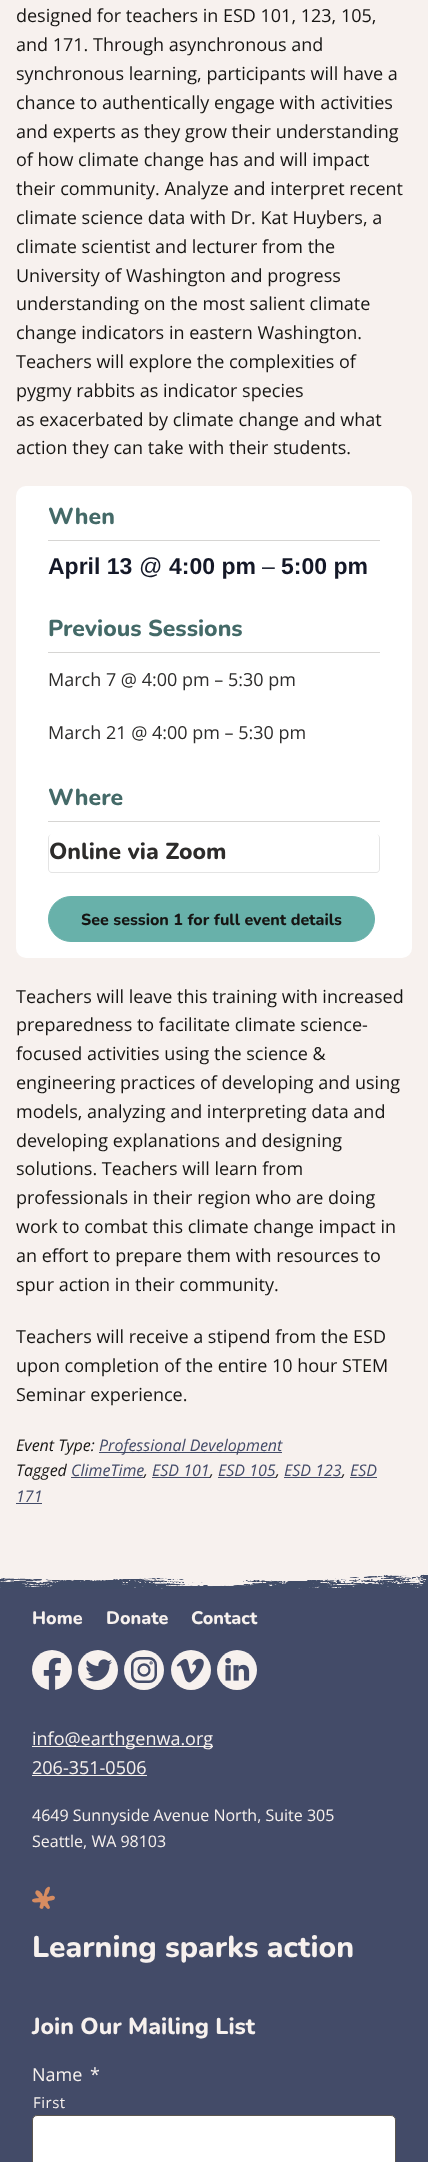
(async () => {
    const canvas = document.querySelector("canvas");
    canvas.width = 428;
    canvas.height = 2162;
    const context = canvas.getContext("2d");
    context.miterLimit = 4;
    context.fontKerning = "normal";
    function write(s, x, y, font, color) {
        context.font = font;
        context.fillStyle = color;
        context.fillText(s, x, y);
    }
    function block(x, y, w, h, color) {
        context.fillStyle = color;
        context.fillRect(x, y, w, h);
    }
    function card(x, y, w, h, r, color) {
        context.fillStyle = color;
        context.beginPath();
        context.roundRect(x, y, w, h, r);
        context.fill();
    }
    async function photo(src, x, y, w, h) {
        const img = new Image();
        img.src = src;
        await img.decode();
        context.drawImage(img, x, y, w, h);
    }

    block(0, 0, 428, 2162, "rgb(247, 241, 238)");
    write("designed for teachers in ESD 101, 123, 105,", 16, 22, "18px Open Sans", "rgb(22, 21, 19)");
    write("and 171. Through asynchronous and", 16, 51, "18px Open Sans", "rgb(22, 21, 19)");
    write("synchronous learning, participants will have a", 16, 80, "18px Open Sans", "rgb(22, 21, 19)");
    write("chance to authentically engage with activities", 16, 109, "18px Open Sans", "rgb(22, 21, 19)");
    write("and experts as they grow their understanding", 16, 138, "18px Open Sans", "rgb(22, 21, 19)");
    write("of how climate change has and will impact", 16, 166, "18px Open Sans", "rgb(22, 21, 19)");
    write("their community. Analyze and interpret recent", 16, 195, "18px Open Sans", "rgb(22, 21, 19)");
    write("climate science data with Dr. Kat Huybers, a", 16, 224, "18px Open Sans", "rgb(22, 21, 19)");
    write("climate scientist and lecturer from the", 16, 253, "18px Open Sans", "rgb(22, 21, 19)");
    write("University of Washington and progress", 16, 282, "18px Open Sans", "rgb(22, 21, 19)");
    write("understanding on the most salient climate", 16, 310, "18px Open Sans", "rgb(22, 21, 19)");
    write("change indicators in eastern Washington.", 16, 339, "18px Open Sans", "rgb(22, 21, 19)");
    write("Teachers will explore the complexities of", 16, 368, "18px Open Sans", "rgb(22, 21, 19)");
    write("pygmy rabbits as indicator species", 16, 397, "18px Open Sans", "rgb(22, 21, 19)");
    write("as exacerbated by climate change and what", 16, 426, "18px Open Sans", "rgb(22, 21, 19)");
    write("action they can take with their students.", 16, 454, "18px Open Sans", "rgb(22, 21, 19)");
    card(16, 486, 396, 472, 10, "rgb(255, 255, 255)");
    block(48, 540, 332, 1, "rgb(214, 213, 211)");
    write("When", 48, 524, "800 23px Nunito", "rgb(68, 106, 104)");
    write("April 13", 48, 574, "bold 23px Liberation Sans", "rgb(20, 24, 39)");
    write("@", 139, 574, "23px Liberation Sans", "rgb(20, 24, 39)");
    write("4:00 pm", 169, 574, "bold 23px Liberation Sans", "rgb(20, 24, 39)");
    write("–", 262, 574, "23px Liberation Sans", "rgb(20, 24, 39)");
    write("5:00 pm", 281, 574, "bold 23px Liberation Sans", "rgb(20, 24, 39)");
    block(48, 652, 332, 1, "rgb(214, 213, 211)");
    write("Previous Sessions", 48, 636, "800 23px Nunito", "rgb(68, 106, 104)");
    write("March 7 @ 4:00 pm – 5:30 pm", 48, 686, "18px Open Sans", "rgb(45, 44, 43)");
    write("March 21 @ 4:00 pm – 5:30 pm", 48, 739, "18px Open Sans", "rgb(45, 44, 43)");
    block(48, 821, 332, 1, "rgb(214, 213, 211)");
    write("Where", 48, 805, "800 23px Nunito", "rgb(68, 106, 104)");
    context.fillStyle = "rgb(228, 228, 228)";
    context.beginPath();
    context.moveTo(52, 834);
    context.lineTo(376, 834);
    context.bezierCurveTo(378, 834, 380, 836, 380, 838);
    context.lineTo(380, 869);
    context.bezierCurveTo(380, 871, 378, 873, 376, 873);
    context.lineTo(52, 873);
    context.bezierCurveTo(50, 873, 48, 871, 48, 869);
    context.lineTo(48, 838);
    context.bezierCurveTo(48, 836, 50, 834, 52, 834);
    context.closePath();
    context.moveTo(52, 834);
    context.lineTo(376, 834);
    context.bezierCurveTo(378, 834, 379, 836, 379, 838);
    context.lineTo(379, 869);
    context.bezierCurveTo(379, 871, 378, 872, 376, 872);
    context.lineTo(52, 872);
    context.bezierCurveTo(50, 872, 49, 871, 49, 869);
    context.lineTo(49, 838);
    context.bezierCurveTo(49, 836, 50, 834, 52, 834);
    context.closePath();
    context.fill("evenodd");
    write("Online via Zoom", 49, 859, "800 23px Nunito", "rgb(45, 44, 43)");
    context.fillStyle = "rgb(104, 177, 170)";
    context.beginPath();
    context.roundRect(48.5, 896.5, 326, 45, 22.5);
    context.fill();
    context.strokeStyle = "rgb(104, 177, 170)";
    context.stroke();
    write("See session 1 for full event details", 81, 925, "800 16px Nunito", "rgb(22, 21, 19)");
    write("Teachers will leave this training with increased", 16, 1003, "18px Open Sans", "rgb(22, 21, 19)");
    write("preparedness to facilitate climate science-", 16, 1031, "18px Open Sans", "rgb(22, 21, 19)");
    write("focused activities using the science &", 16, 1060, "18px Open Sans", "rgb(22, 21, 19)");
    write("engineering practices of developing and using", 16, 1089, "18px Open Sans", "rgb(22, 21, 19)");
    write("models, analyzing and interpreting data and", 16, 1118, "18px Open Sans", "rgb(22, 21, 19)");
    write("developing explanations and designing", 16, 1147, "18px Open Sans", "rgb(22, 21, 19)");
    write("solutions. Teachers will learn from", 16, 1175, "18px Open Sans", "rgb(22, 21, 19)");
    write("professionals in their region who are doing", 16, 1204, "18px Open Sans", "rgb(22, 21, 19)");
    write("work to combat this climate change impact in", 16, 1233, "18px Open Sans", "rgb(22, 21, 19)");
    write("an effort to prepare them with resources to", 16, 1262, "18px Open Sans", "rgb(22, 21, 19)");
    write("spur action in their community.", 16, 1291, "18px Open Sans", "rgb(22, 21, 19)");
    write("Teachers will receive a stipend from the ESD", 16, 1343, "18px Open Sans", "rgb(22, 21, 19)");
    write("upon completion of the entire 10 hour STEM", 16, 1372, "18px Open Sans", "rgb(22, 21, 19)");
    write("Seminar experience.", 16, 1401, "18px Open Sans", "rgb(22, 21, 19)");
    write("Event Type:", 16, 1451, "italic 16px Open Sans", "rgb(22, 21, 19)");
    block(99, 1452, 183, 1, "rgb(67, 75, 104)");
    write("Professional Development", 99, 1451, "italic 16px Open Sans", "rgb(67, 75, 104)");
    write("Tagged", 16, 1476, "italic 16px Open Sans", "rgb(22, 21, 19)");
    write("ClimeTime", 71, 1476, "italic 16px Open Sans", "rgb(67, 75, 104)");
    block(71, 1477, 73, 1, "rgb(67, 75, 104)");
    write(",", 144, 1476, "italic 16px Open Sans", "rgb(22, 21, 19)");
    write("ESD 101", 152, 1476, "italic 16px Open Sans", "rgb(67, 75, 104)");
    block(152, 1477, 58, 1, "rgb(67, 75, 104)");
    write(",", 210, 1476, "italic 16px Open Sans", "rgb(22, 21, 19)");
    write("ESD 105", 218, 1476, "italic 16px Open Sans", "rgb(67, 75, 104)");
    block(218, 1477, 58, 1, "rgb(67, 75, 104)");
    write(",", 276, 1476, "italic 16px Open Sans", "rgb(22, 21, 19)");
    write("ESD 123", 284, 1476, "italic 16px Open Sans", "rgb(67, 75, 104)");
    block(284, 1477, 58, 1, "rgb(67, 75, 104)");
    write("ESD", 350, 1476, "italic 16px Open Sans", "rgb(67, 75, 104)");
    block(350, 1477, 27, 1, "rgb(67, 75, 104)");
    write(",", 342, 1476, "italic 16px Open Sans", "rgb(22, 21, 19)");
    write("171", 16, 1502, "italic 16px Open Sans", "rgb(67, 75, 104)");
    block(16, 1503, 26, 1, "rgb(67, 75, 104)");
    block(0, 1589, 428, 573, "rgb(67, 75, 104)");
    await photo("media/1.png", 0, 1573, 428, 16);
    write("Home", 32, 1624, "800 18px Nunito", "rgb(247, 241, 238)");
    write("Donate", 106, 1624, "800 18px Nunito", "rgb(247, 241, 238)");
    write("Contact", 191, 1624, "800 18px Nunito", "rgb(247, 241, 238)");
    context.beginPath();
    context.arc(52, 1670, 20, 0, Math.PI * 2);
    context.fill();
    await photo("media/2.png", 43, 1657, 18, 33);
    context.beginPath();
    context.arc(98, 1670, 20, 0, Math.PI * 2);
    context.fill();
    await photo("media/3.png", 85, 1659, 27, 23);
    context.beginPath();
    context.arc(144, 1670, 20, 0, Math.PI * 2);
    context.fill();
    context.beginPath();
    context.roundRect(132.25, 1658.25, 23.5, 23.5, 6.75);
    context.strokeStyle = "rgb(67, 75, 104)";
    context.lineWidth = 2.5;
    context.stroke();
    context.beginPath();
    context.arc(144, 1670, 5.5, 0, Math.PI * 2);
    context.lineWidth = 2.3;
    context.stroke();
    context.beginPath();
    context.arc(151.1, 1662.9, 0.5, 0, Math.PI * 2);
    context.stroke();
    context.beginPath();
    context.arc(191, 1670, 20, 0, Math.PI * 2);
    context.fill();
    await photo("media/4.png", 176, 1658, 28, 25);
    context.beginPath();
    context.arc(237, 1670, 20, 0, Math.PI * 2);
    context.fill();
    await photo("media/5.png", 225, 1657, 25, 24);
    block(32, 1746, 181, 1, "rgb(247, 241, 238)");
    write("info@earthgenwa.org", 32, 1745, "18px Open Sans", "rgb(247, 241, 238)");
    write("206-351-0506", 32, 1774, "18px Open Sans", "rgb(247, 241, 238)");
    block(32, 1775, 115, 1, "rgb(247, 241, 238)");
    write("4649 Sunnyside Avenue North, Suite 305", 32, 1821, "16px Open Sans", "rgb(247, 241, 238)");
    write("Seattle, WA 98103", 32, 1847, "16px Open Sans", "rgb(247, 241, 238)");
    await photo("media/6.png", 32, 1886, 23, 23);
    write("Learning sparks action", 32, 1957, "800 30px Nunito", "rgb(247, 241, 238)");
    write("Join Our Mailing List", 32, 2034, "800 23px Nunito", "rgb(247, 241, 238)");
    write("Name", 32, 2081, "18px Open Sans", "rgb(247, 241, 238)");
    write("*", 90, 2081, "18px Open Sans", "rgb(247, 241, 238)");
    context.letterSpacing = "0.5px";
    write("First", 33, 2108, "15px Open Sans", "rgb(247, 241, 238)");
    context.fillStyle = "rgb(255, 255, 255)";
    context.beginPath();
    context.roundRect(32.5, 2115.5, 363, 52, 4.5);
    context.fill();
    context.strokeStyle = "rgb(91, 86, 79)";
    context.lineWidth = 1;
    context.stroke();
})();
